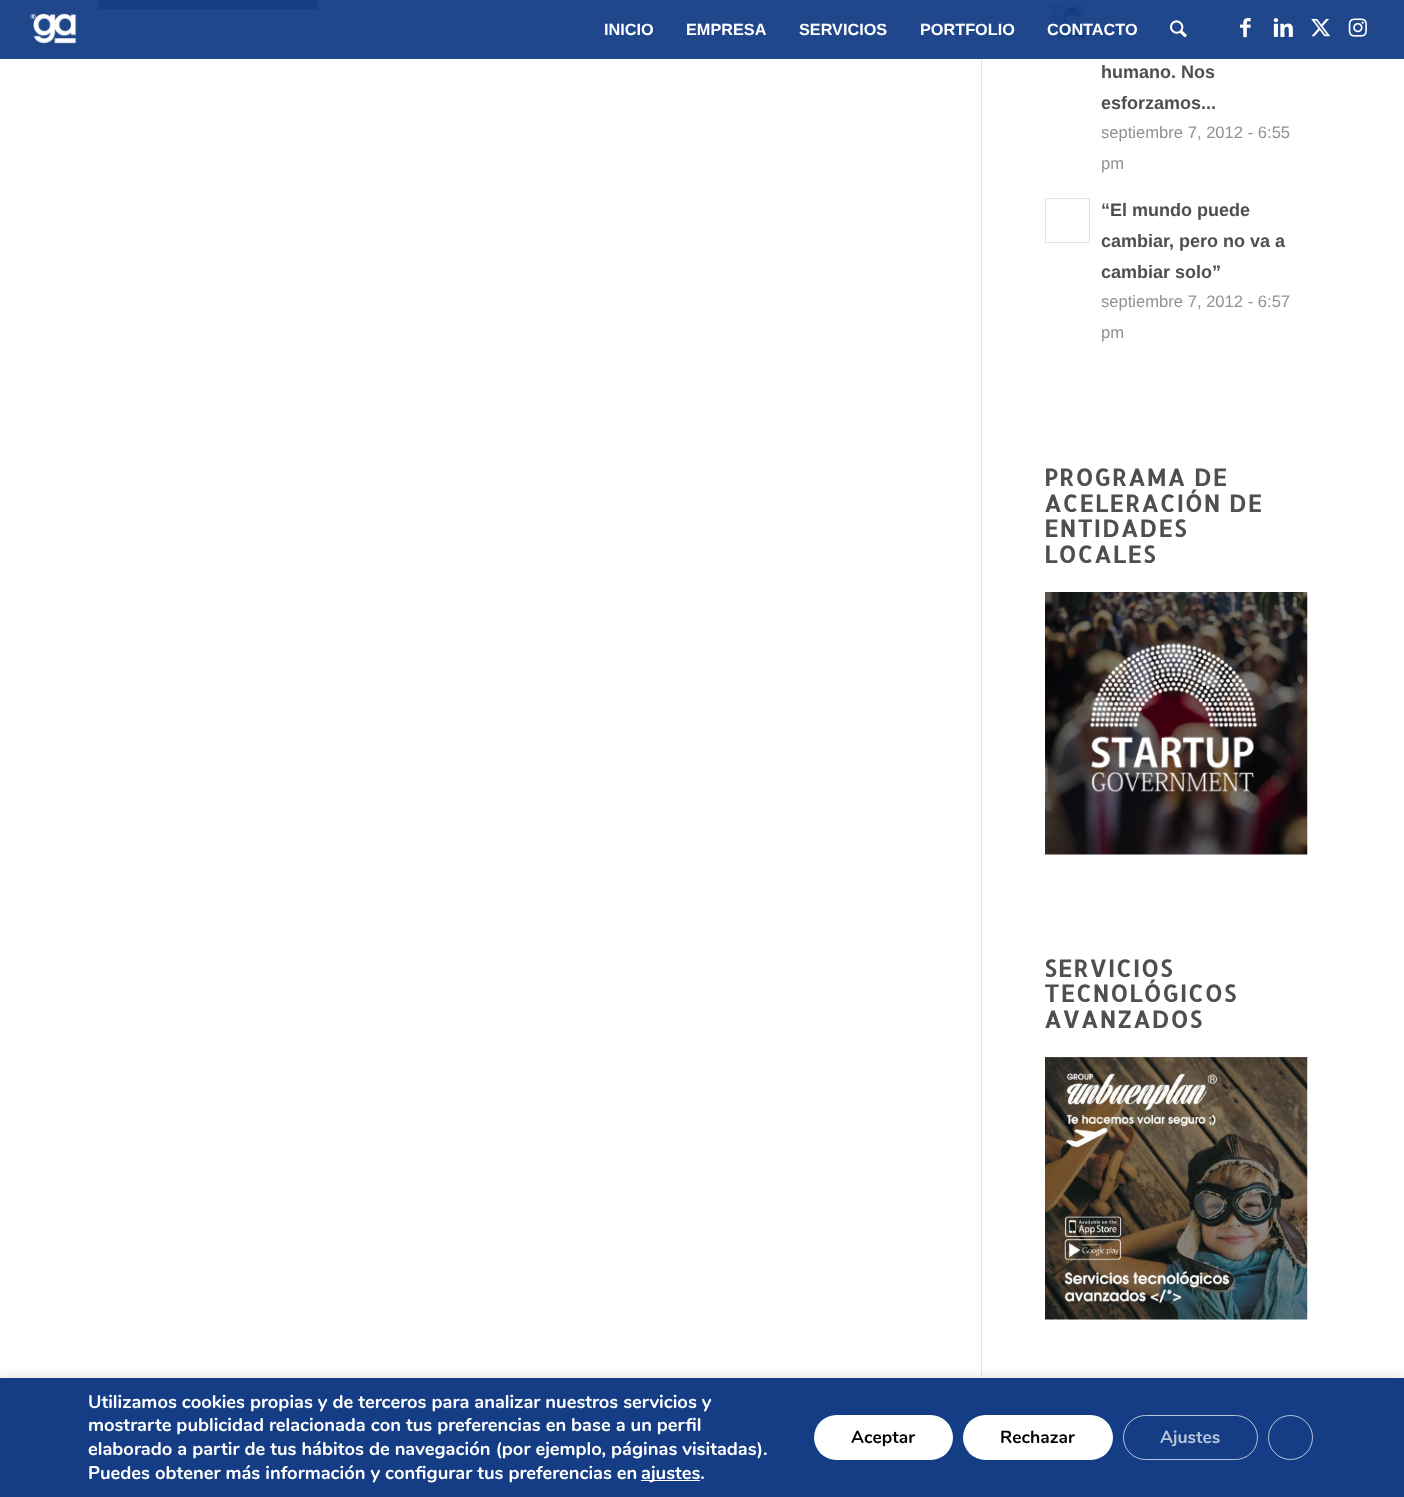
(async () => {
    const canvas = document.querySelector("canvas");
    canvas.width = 1404;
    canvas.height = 1497;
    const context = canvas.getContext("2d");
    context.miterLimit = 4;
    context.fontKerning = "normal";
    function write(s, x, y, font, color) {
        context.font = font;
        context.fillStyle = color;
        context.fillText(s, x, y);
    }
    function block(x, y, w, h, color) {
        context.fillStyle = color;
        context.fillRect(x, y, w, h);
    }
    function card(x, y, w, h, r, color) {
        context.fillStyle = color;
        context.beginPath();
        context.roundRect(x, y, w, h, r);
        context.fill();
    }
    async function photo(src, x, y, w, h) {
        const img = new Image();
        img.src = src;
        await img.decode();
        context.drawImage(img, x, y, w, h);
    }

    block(0, 0, 1404, 1497, "rgb(255, 255, 255)");
    block(0, 0, 1404, 59, "rgb(32, 71, 139)");
    await photo("media/1.png", 30, 13, 47, 31);
    write("INICIO", 604, 35, "bold 16.25px Liberation Sans", "rgb(255, 255, 255)");
    write("EMPRESA", 686, 35, "bold 16.25px Liberation Sans", "rgb(255, 255, 255)");
    write("SERVICIOS", 799, 35, "bold 16.25px Liberation Sans", "rgb(255, 255, 255)");
    write("PORTFOLIO", 920, 35, "bold 16.25px Liberation Sans", "rgb(255, 255, 255)");
    await photo("media/7.png", 1050, 3, 35, 36);
    write("CONTACTO", 1047, 35, "bold 16.25px Liberation Sans", "rgb(255, 255, 255)");
    await photo("media/2.png", 1170, 20, 17, 18);
    await photo("media/3.png", 1240, 18, 11, 20);
    await photo("media/4.png", 1273, 18, 20, 19);
    await photo("media/5.png", 1311, 18, 20, 19);
    await photo("media/6.png", 1348, 18, 19, 19);
    block(98, 0, 220, 9, "rgb(20, 61, 133)");
    block(981, 59, 1, 1319, "rgb(225, 225, 225)");
    write("humano. Nos", 1101, 78, "bold 18px Liberation Sans", "rgb(79, 79, 79)");
    write("esforzamos...", 1101, 109, "bold 18px Liberation Sans", "rgb(79, 79, 79)");
    write("septiembre 7, 2012 - 6:55", 1101, 138, "16.6px Liberation Sans", "rgb(145, 145, 145)");
    write("pm", 1101, 169, "16.6px Liberation Sans", "rgb(145, 145, 145)");
    context.strokeStyle = "rgb(225, 225, 225)";
    context.strokeRect(1045.5, 198.5, 44, 44);
    write("“El mundo puede", 1101, 216, "bold 18px Liberation Sans", "rgb(79, 79, 79)");
    write("cambiar, pero no va a", 1101, 247, "bold 18px Liberation Sans", "rgb(79, 79, 79)");
    write("cambiar solo”", 1101, 278, "bold 18px Liberation Sans", "rgb(79, 79, 79)");
    write("septiembre 7, 2012 - 6:57", 1101, 307, "16.6px Liberation Sans", "rgb(145, 145, 145)");
    write("pm", 1101, 338, "16.6px Liberation Sans", "rgb(145, 145, 145)");
    context.letterSpacing = "1.25px";
    write("PROGRAMA DE", 1044, 486, "bold 23.4px Allerta", "rgb(79, 79, 79)");
    write("ACELERACIÓN DE", 1044, 512, "bold 23.4px Allerta", "rgb(79, 79, 79)");
    write("ENTIDADES", 1044, 537, "bold 23.4px Allerta", "rgb(79, 79, 79)");
    write("LOCALES", 1044, 563, "bold 23.4px Allerta", "rgb(79, 79, 79)");
    await photo("media/8.png", 1045, 592, 263, 263);
    write("SERVICIOS", 1044, 977, "bold 23.4px Allerta", "rgb(79, 79, 79)");
    write("TECNOLÓGICOS", 1044, 1002, "bold 23.4px Allerta", "rgb(79, 79, 79)");
    write("AVANZADOS", 1044, 1028, "bold 23.4px Allerta", "rgb(79, 79, 79)");
    await photo("media/9.png", 1045, 1057, 263, 263);
    context.fillStyle = "rgba(172, 171, 171, 0.3)";
    context.filter = "blur(6px)";
    context.beginPath();
    context.rect(0, 1376, 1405, 120);
    context.fill();
    context.filter = "none";
    block(0, 1378, 1404, 119, "rgb(20, 61, 133)");
    context.letterSpacing = "0px";
    write("Utilizamos cookies propias y de terceros para analizar nuestros servicios y", 88, 1408, "bold 18.35px Nunito", "rgb(255, 255, 255)");
    write("mostrarte publicidad relacionada con tus preferencias en base a un perfil", 88, 1431, "bold 18.35px Nunito", "rgb(255, 255, 255)");
    write("elaborado a partir de tus hábitos de navegación (por ejemplo, páginas visitadas).", 88, 1455, "bold 18.35px Nunito", "rgb(255, 255, 255)");
    write("Puedes obtener más información y configurar tus preferencias en", 88, 1479, "bold 18.35px Nunito", "rgb(255, 255, 255)");
    block(641, 1480, 59, 1, "rgb(255, 255, 255)");
    write("ajustes.", 641, 1479, "bold 18.35px Nunito", "rgb(255, 255, 255)");
    card(814, 1415, 139, 45, 22.5, "rgb(255, 255, 255)");
    write("Aceptar", 851, 1443, "bold 17.5px Nunito", "rgb(0, 0, 0)");
    card(963, 1415, 150, 45, 22.5, "rgb(255, 255, 255)");
    write("Rechazar", 1000, 1443, "bold 17.5px Nunito", "rgb(0, 0, 0)");
    context.beginPath();
    context.roundRect(1123.5, 1415.5, 134, 44, 22);
    context.strokeStyle = "rgb(185, 197, 218)";
    context.stroke();
    write("Ajustes", 1160, 1443, "bold 17.5px Nunito", "rgb(185, 197, 218)");
    context.beginPath();
    context.arc(1290.5, 1437.5, 22, 0, Math.PI * 2);
    context.stroke();
})();
